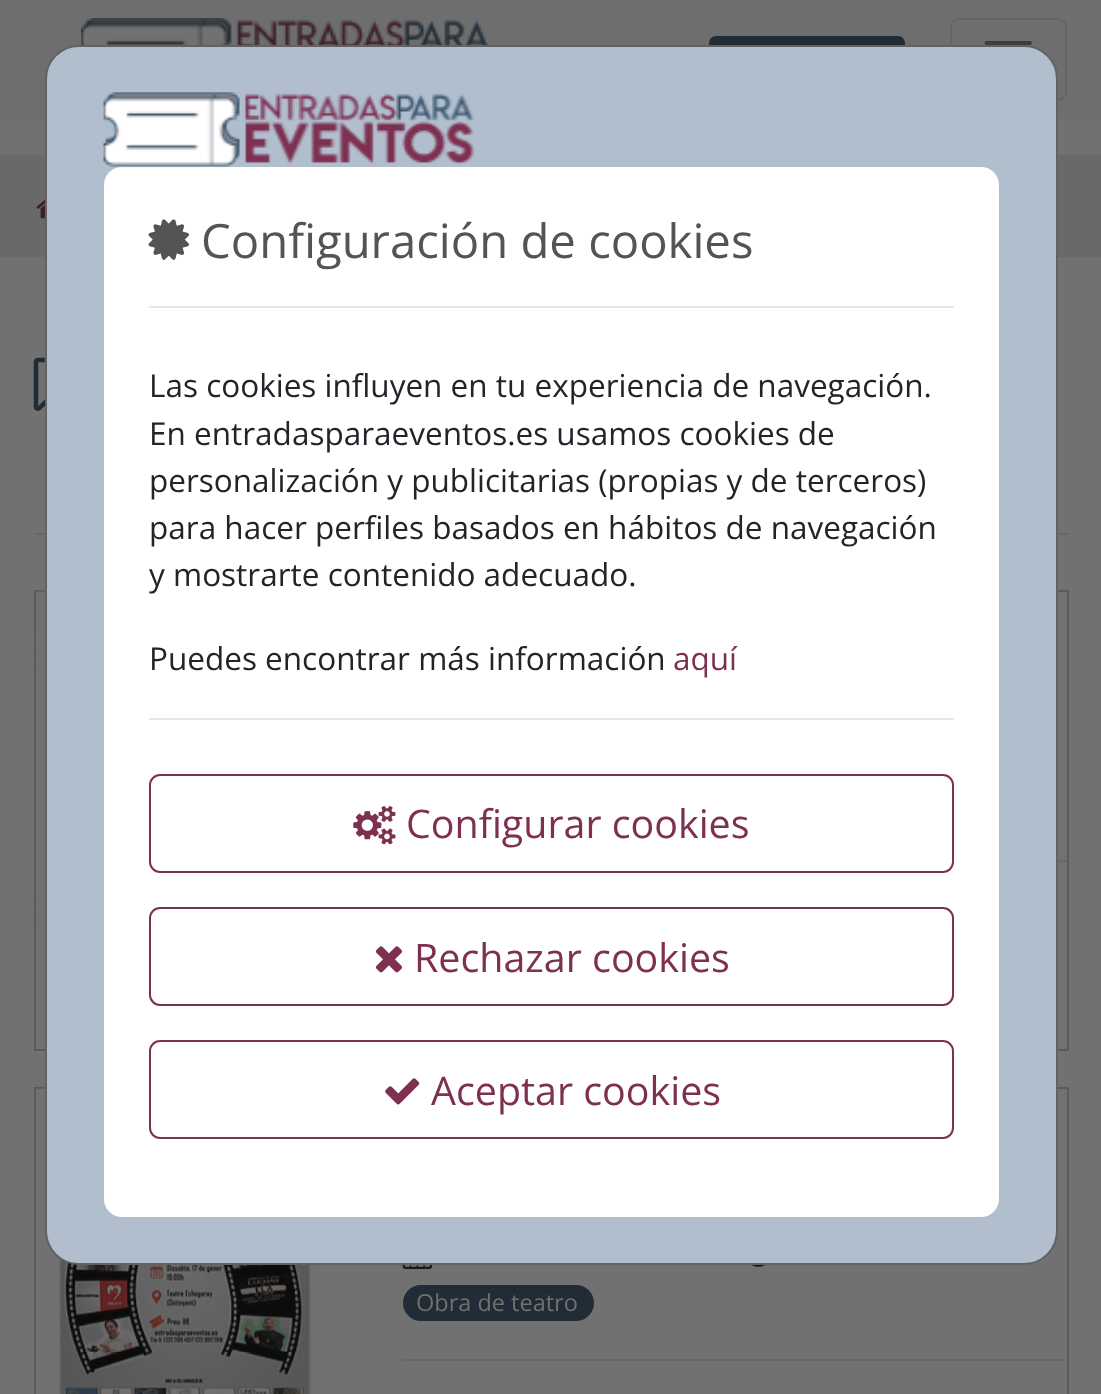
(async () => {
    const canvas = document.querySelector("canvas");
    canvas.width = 1101;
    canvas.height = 1394;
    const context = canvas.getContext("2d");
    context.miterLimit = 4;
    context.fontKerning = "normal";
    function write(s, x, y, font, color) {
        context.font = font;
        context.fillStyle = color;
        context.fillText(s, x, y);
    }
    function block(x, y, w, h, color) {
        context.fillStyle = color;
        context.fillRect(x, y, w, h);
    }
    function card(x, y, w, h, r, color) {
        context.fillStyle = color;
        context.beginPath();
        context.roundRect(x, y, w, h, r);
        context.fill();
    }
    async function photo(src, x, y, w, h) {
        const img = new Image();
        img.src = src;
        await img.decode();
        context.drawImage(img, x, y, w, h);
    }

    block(0, 0, 1101, 1394, "rgb(113, 113, 113)");
    block(0, 0, 1101, 119, "rgb(110, 110, 110)");
    await photo("media/1.png", 81, 18, 408, 27);
    context.fillStyle = "rgb(33, 44, 54)";
    context.beginPath();
    context.roundRect(710, 37, 194, 48, 6);
    context.fill();
    context.strokeStyle = "rgb(33, 44, 54)";
    context.lineWidth = 2;
    context.stroke();
    context.beginPath();
    context.roundRect(951, 19, 115, 81, 8);
    context.strokeStyle = "rgb(100, 100, 100)";
    context.stroke();
    context.beginPath();
    context.moveTo(986.5, 43);
    context.lineTo(1030, 43);
    context.moveTo(986.5, 59);
    context.lineTo(1030, 59);
    context.moveTo(986.5, 74.5);
    context.lineTo(1030, 74.5);
    context.strokeStyle = "rgb(61, 61, 61)";
    context.lineWidth = 3.9;
    context.lineCap = "round";
    context.stroke();
    block(0, 155, 1101, 102, "rgb(104, 105, 106)");
    block(34, 533, 1035, 2, "rgb(103, 103, 103)");
    context.strokeStyle = "rgb(92, 91, 91)";
    context.lineWidth = 2;
    context.strokeRect(35, 591, 1033, 459);
    context.strokeRect(35, 1088, 1033, 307);
    await photo("media/10.png", 36, 1088, 299, 306);
    context.fillStyle = "rgb(177, 190, 206)";
    context.beginPath();
    context.roundRect(46, 46, 1011, 1218, 33);
    context.fill();
    context.strokeStyle = "rgb(98, 98, 98)";
    context.stroke();
    card(104, 167, 895, 1050, 18, "rgb(255, 255, 255)");
    await photo("media/2.png", 103, 92, 372, 76);
    await photo("media/3.png", 148, 219, 41, 41);
    write("Configuración de cookies", 201, 258, "47.25px Open Sans", "rgb(84, 84, 84)");
    block(149, 306, 805, 2, "rgb(230, 230, 230)");
    write("Las cookies influyen en tu experiencia de navegación.", 149, 397, "31.5px Open Sans", "rgb(33, 37, 41)");
    write("En entradasparaeventos.es usamos cookies de", 149, 445, "31.5px Open Sans", "rgb(33, 37, 41)");
    write("personalización y publicitarias (propias y de terceros)", 149, 492, "31.5px Open Sans", "rgb(33, 37, 41)");
    write("para hacer perfiles basados en hábitos de navegación", 149, 539, "31.5px Open Sans", "rgb(33, 37, 41)");
    write("y mostrarte contenido adecuado.", 149, 586, "31.5px Open Sans", "rgb(33, 37, 41)");
    write("Puedes encontrar más información", 149, 670, "31.5px Open Sans", "rgb(33, 37, 41)");
    write("aquí", 673, 670, "31.5px Open Sans", "rgb(125, 48, 80)");
    block(149, 718, 805, 2, "rgb(230, 230, 230)");
    context.beginPath();
    context.roundRect(150, 775, 803, 97, 10);
    context.strokeStyle = "rgb(125, 48, 80)";
    context.stroke();
    await photo("media/4.png", 353, 805, 43, 40);
    write("Configurar cookies", 406, 838, "39.4px Open Sans", "rgb(125, 48, 80)");
    context.beginPath();
    context.roundRect(150, 908, 803, 97, 10);
    context.stroke();
    await photo("media/5.png", 375, 946, 27, 27);
    write("Rechazar cookies", 414, 972, "39.4px Open Sans", "rgb(125, 48, 80)");
    context.beginPath();
    context.roundRect(150, 1041, 803, 97, 10);
    context.stroke();
    await photo("media/6.png", 385, 1078, 35, 27);
    write("Aceptar cookies", 431, 1105, "39.4px Open Sans", "rgb(125, 48, 80)");
    await photo("media/7.png", 36, 199, 9, 20);
    await photo("media/8.png", 33, 357, 12, 54);
    await photo("media/9.png", 36, 591, 9, 353);
    block(1058, 860, 9, 2, "rgb(103, 103, 103)");
    await photo("media/11.png", 402, 1265, 30, 4);
    await photo("media/12.png", 751, 1265, 14, 2);
    card(403, 1285, 191, 36, 18, "rgb(33, 44, 54)");
    write("Obra de teatro", 416, 1311, "23.5px Open Sans", "rgb(113, 113, 113)");
    block(403, 1359, 664, 2, "rgb(103, 103, 103)");
})();
